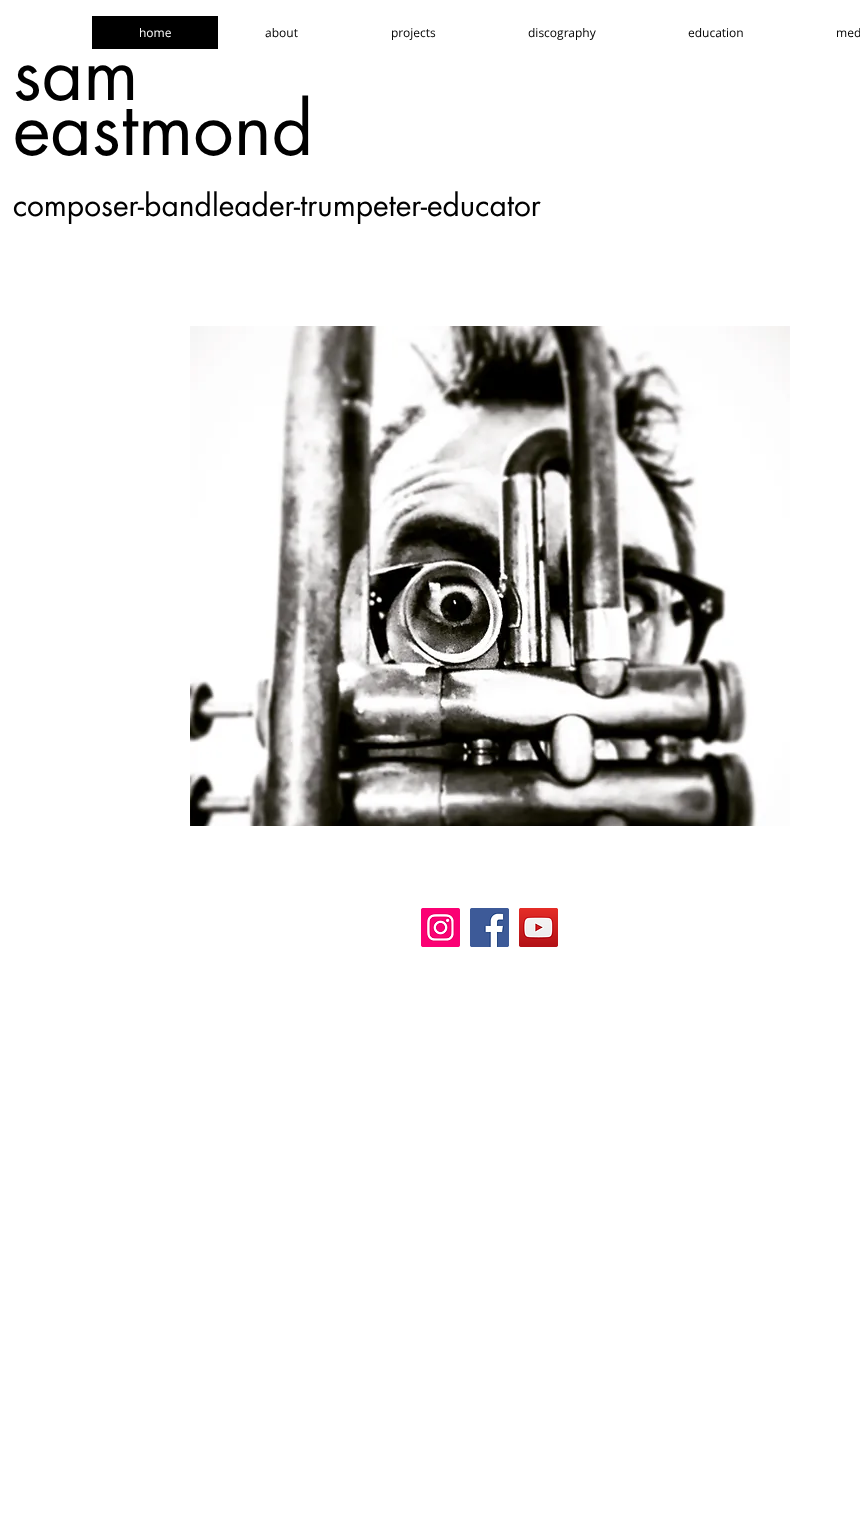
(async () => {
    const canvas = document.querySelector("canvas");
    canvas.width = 860;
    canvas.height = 1533;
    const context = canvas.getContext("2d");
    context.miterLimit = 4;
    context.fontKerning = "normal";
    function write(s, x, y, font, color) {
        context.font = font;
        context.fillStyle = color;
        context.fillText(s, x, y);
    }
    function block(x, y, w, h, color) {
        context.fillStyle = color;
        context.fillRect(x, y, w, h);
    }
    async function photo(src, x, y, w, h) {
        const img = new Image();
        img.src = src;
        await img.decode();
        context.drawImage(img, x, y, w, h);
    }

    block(0, 0, 860, 1533, "rgb(255, 255, 255)");
    block(92, 16, 126, 33, "rgb(0, 0, 0)");
    write("home", 139, 37, "12px Open Sans", "rgb(255, 255, 255)");
    write("about", 265, 37, "12px Open Sans", "rgb(0, 0, 0)");
    write("projects", 391, 37, "12px Open Sans", "rgb(0, 0, 0)");
    write("discography", 528, 37, "12px Open Sans", "rgb(0, 0, 0)");
    write("education", 688, 37, "12px Open Sans", "rgb(0, 0, 0)");
    write("med", 836, 37, "12px Open Sans", "rgb(0, 0, 0)");
    write("sam", 13, 100, "72px futura", "rgb(0, 0, 0)");
    write("eastmond", 13, 155, "72px futura", "rgb(0, 0, 0)");
    write("composer-bandleader-trumpeter-educator", 13, 216, "30px futura", "rgb(0, 0, 0)");
    await photo("media/1.png", 190, 326, 600, 500);
    await photo("media/2.png", 421, 908, 39, 39);
    await photo("media/3.png", 470, 908, 39, 39);
    await photo("media/4.png", 519, 908, 39, 39);
})();
